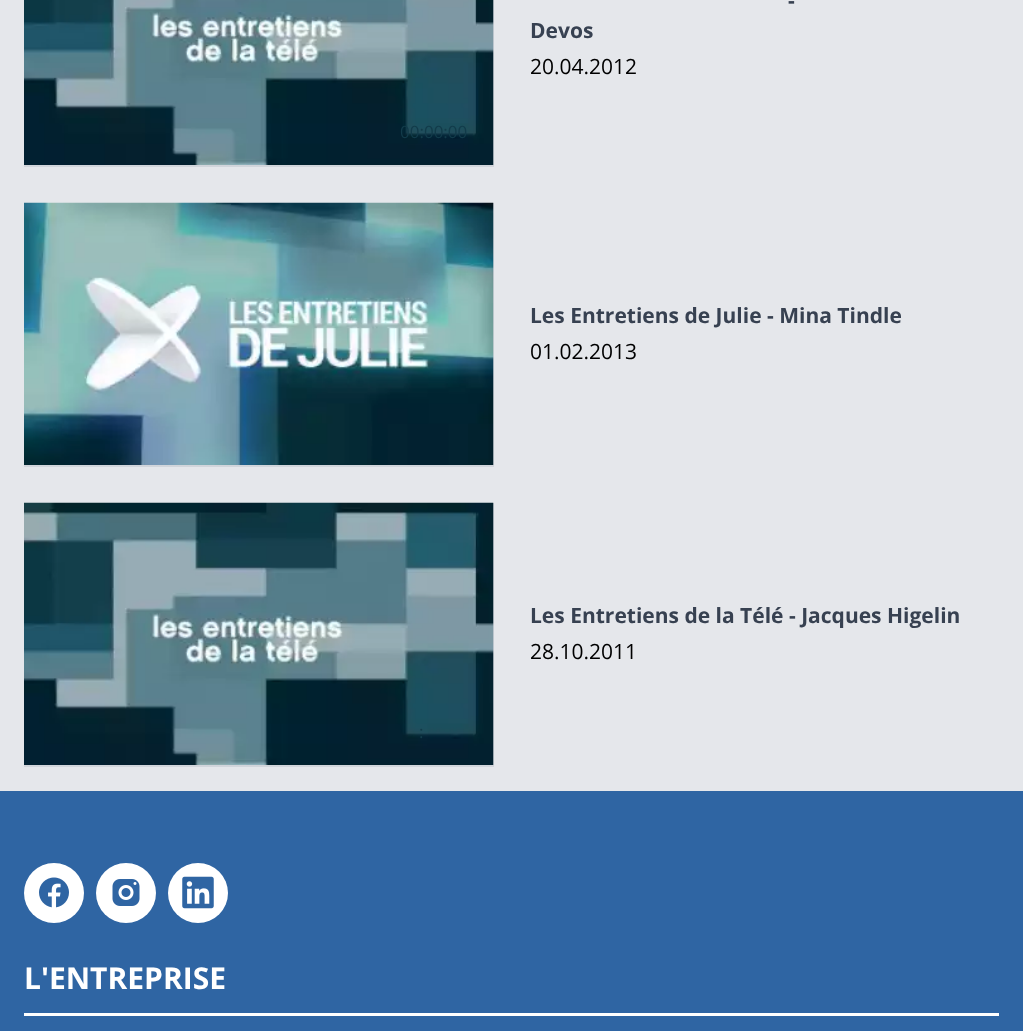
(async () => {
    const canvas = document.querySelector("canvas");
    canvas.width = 1023;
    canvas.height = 1031;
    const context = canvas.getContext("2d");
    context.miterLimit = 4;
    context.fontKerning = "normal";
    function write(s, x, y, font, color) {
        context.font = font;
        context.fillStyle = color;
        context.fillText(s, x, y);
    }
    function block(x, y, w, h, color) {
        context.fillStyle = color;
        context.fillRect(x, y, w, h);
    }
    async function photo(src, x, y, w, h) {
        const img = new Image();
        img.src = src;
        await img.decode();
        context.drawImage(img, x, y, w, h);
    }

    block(0, 0, 1023, 1031, "rgb(229, 231, 235)");
    write("-", 788, 8, "bold 21px Open Sans", "rgb(55, 65, 81)");
    write("Devos", 530, 38, "bold 21px Open Sans", "rgb(55, 65, 81)");
    write("20.04.2012", 530, 74, "21px Open Sans", "rgb(0, 0, 0)");
    block(24, 0, 470, 167, "rgb(209, 213, 219)");
    await photo("media/1.png", 24, 0, 470, 165);
    write("00:00:00", 400, 138, "17px Open Sans", "rgb(18, 59, 74)");
    block(24, 203, 470, 264, "rgb(209, 213, 219)");
    await photo("media/2.png", 24, 202, 470, 263);
    write("Les Entretiens de Julie - Mina Tindle", 530, 323, "bold 21px Open Sans", "rgb(55, 65, 81)");
    write("01.02.2013", 530, 359, "21px Open Sans", "rgb(0, 0, 0)");
    write("Les Entretiens de la Télé - Jacques Higelin", 530, 623, "bold 21px Open Sans", "rgb(55, 65, 81)");
    write("28.10.2011", 530, 659, "21px Open Sans", "rgb(0, 0, 0)");
    block(24, 503, 470, 264, "rgb(209, 213, 219)");
    await photo("media/3.png", 24, 502, 470, 263);
    write(":", 419, 738, "17px Open Sans", "rgb(18, 59, 74)");
    block(0, 791, 1023, 240, "rgb(47, 101, 163)");
    context.fillStyle = "rgb(255, 255, 255)";
    context.beginPath();
    context.arc(54, 893, 30, 0, Math.PI * 2);
    context.fill();
    await photo("media/4.png", 39, 877, 30, 31);
    context.beginPath();
    context.arc(126, 893, 30, 0, Math.PI * 2);
    context.fill();
    await photo("media/5.png", 112, 879, 28, 27);
    context.beginPath();
    context.arc(198, 893, 30, 0, Math.PI * 2);
    context.fill();
    await photo("media/6.png", 182, 876, 32, 33);
    block(24, 1013, 975, 3, "rgb(255, 255, 255)");
    write("L'ENTREPRISE", 24, 989, "bold 30px Open Sans", "rgb(255, 255, 255)");
})();
